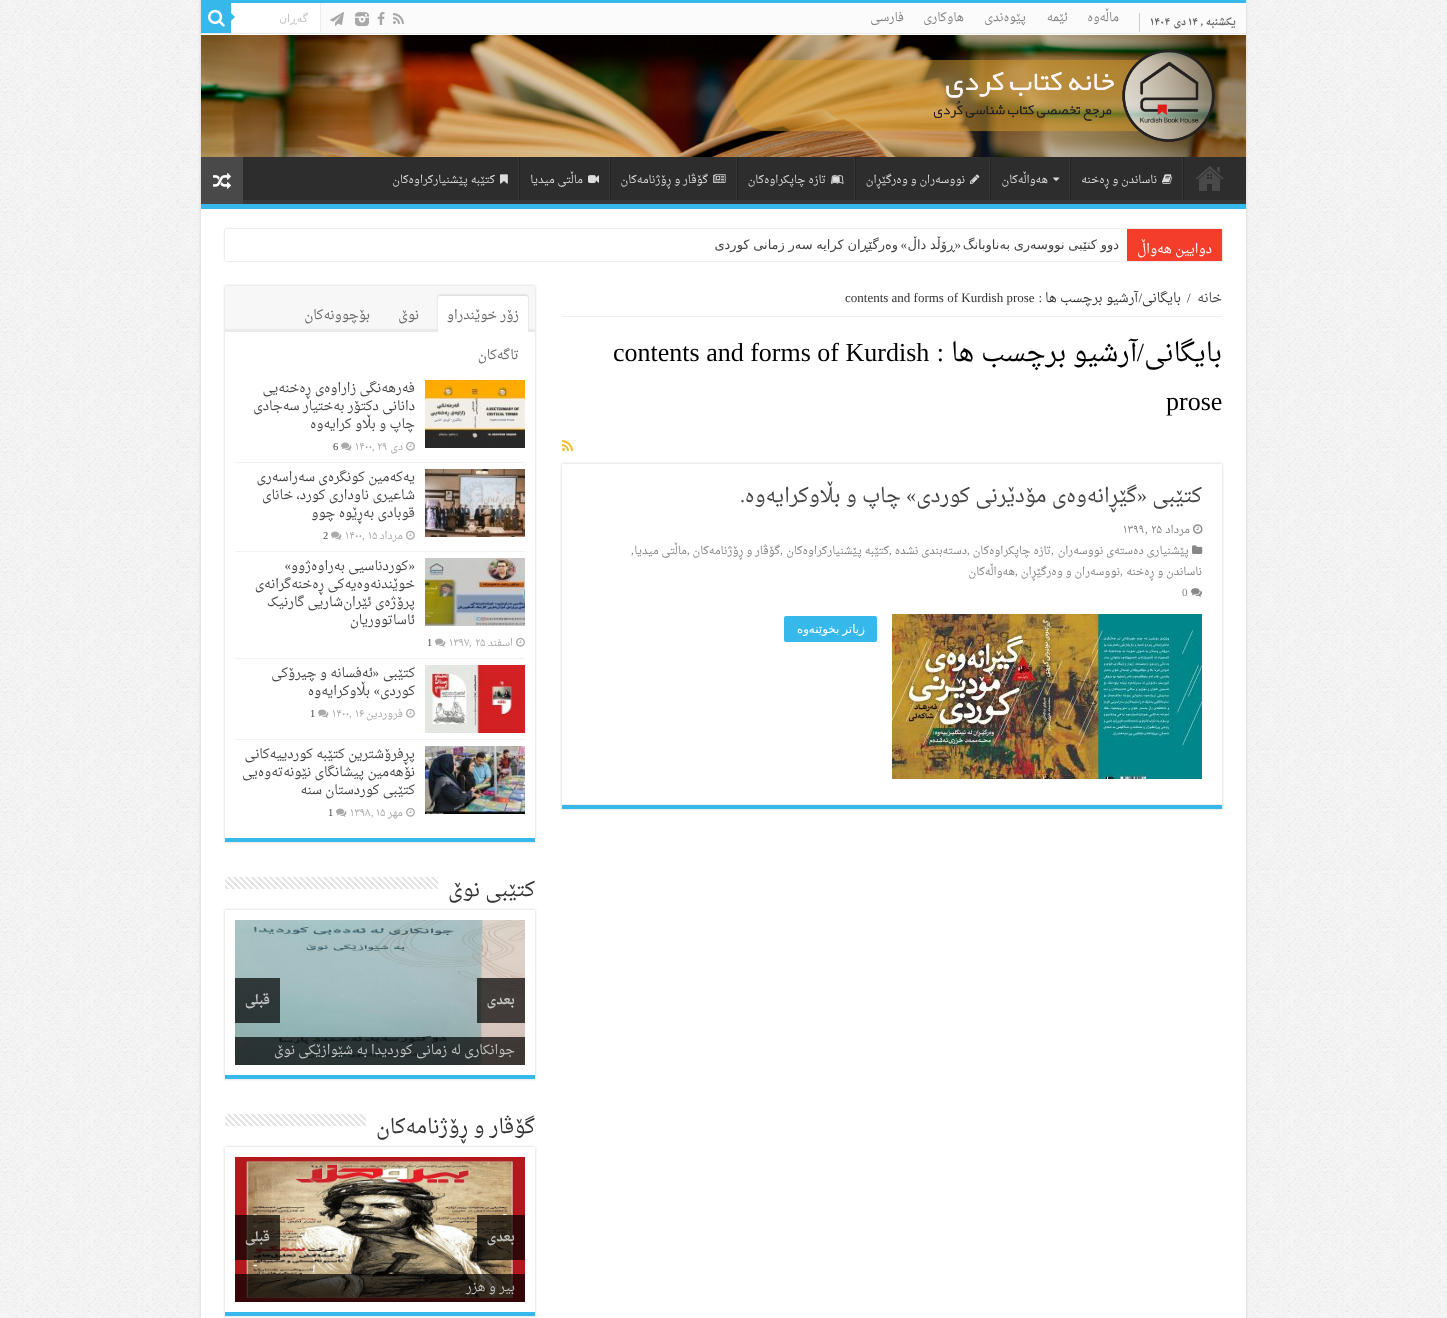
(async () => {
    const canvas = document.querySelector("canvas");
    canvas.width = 1447;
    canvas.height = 1318;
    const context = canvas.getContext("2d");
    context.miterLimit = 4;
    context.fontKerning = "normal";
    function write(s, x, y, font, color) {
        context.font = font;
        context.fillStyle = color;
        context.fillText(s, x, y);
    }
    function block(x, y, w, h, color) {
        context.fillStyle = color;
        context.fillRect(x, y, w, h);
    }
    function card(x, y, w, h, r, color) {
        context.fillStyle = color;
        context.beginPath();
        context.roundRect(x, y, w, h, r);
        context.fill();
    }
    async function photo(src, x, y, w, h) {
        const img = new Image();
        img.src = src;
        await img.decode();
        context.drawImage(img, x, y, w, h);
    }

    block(0, 0, 1447, 1318, "rgb(255, 255, 255)");
    await photo("media/1.png", 0, 0, 1447, 1318);
    context.fillStyle = "rgb(202, 202, 202)";
    context.filter = "blur(1.5px)";
    context.beginPath();
    context.rect(201, 0, 1045, 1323);
    context.fill();
    context.filter = "none";
    block(201, 34, 1045, 1284, "rgb(255, 255, 255)");
    block(201, 0, 1045, 3, "rgb(55, 184, 235)");
    block(231, 3, 1015, 30, "rgb(251, 251, 251)");
    block(201, 33, 1045, 1, "rgb(236, 236, 236)");
    block(1139, 13, 1, 19, "rgb(204, 204, 204)");
    context.direction = "rtl";
    write("یکشنبه", 1236, 25, "bold 10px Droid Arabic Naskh", "rgb(102, 102, 102)");
    write(",", 1203, 25, "bold 10px Liberation Serif", "rgb(102, 102, 102)");
    context.direction = "ltr";
    write("۱۴", 1188, 25, "bold 10px Droid Arabic Naskh", "rgb(102, 102, 102)");
    context.direction = "rtl";
    write("دی", 1186, 25, "bold 10px Droid Arabic Naskh", "rgb(102, 102, 102)");
    context.direction = "ltr";
    write("۱۴۰۴", 1150, 25, "bold 10px Droid Arabic Naskh", "rgb(102, 102, 102)");
    context.direction = "rtl";
    write("ماڵه‌وه‌", 1119, 21, "12px Droid Arabic Naskh", "rgb(131, 131, 131)");
    write("ئێمه‌", 1068, 21, "12px Droid Arabic Naskh", "rgb(131, 131, 131)");
    write("پێوه‌ندی", 1026, 21, "12px Droid Arabic Naskh", "rgb(131, 131, 131)");
    write("هاوکاری", 964, 21, "12px Droid Arabic Naskh", "rgb(131, 131, 131)");
    write("فارسی", 904, 21, "12px Droid Arabic Naskh", "rgb(131, 131, 131)");
    await photo("media/2.png", 393, 13, 11, 11);
    await photo("media/3.png", 377, 12, 8, 13);
    await photo("media/4.png", 355, 12, 14, 15);
    await photo("media/5.png", 330, 12, 14, 14);
    block(231, 3, 89, 29, "rgb(255, 255, 255)");
    block(320, 3, 1, 29, "rgb(236, 236, 236)");
    write("گه‌ڕان", 308, 22, "11px DejaVu Sans", "rgb(197, 197, 197)");
    block(201, 3, 30, 30, "rgb(55, 184, 235)");
    await photo("media/6.png", 208, 9, 17, 18);
    context.beginPath();
    context.moveTo(231, 21);
    context.lineTo(231, 13);
    context.lineTo(235, 17);
    context.closePath();
    context.fill();
    await photo("media/7.png", 201, 35, 1045, 122);
    block(243, 157, 1003, 43, "rgb(45, 45, 45)");
    context.save();
    context.beginPath();
    context.rect(201, 157, 1045, 47);
    context.clip();
    context.fillStyle = "rgb(57, 57, 57)";
    context.beginPath();
    context.moveTo(102, 58);
    context.lineTo(1345, 58);
    context.lineTo(1345, 303);
    context.lineTo(102, 303);
    context.closePath();
    context.moveTo(200, 151);
    context.lineTo(1246, 151);
    context.lineTo(1246, 191);
    context.bezierCurveTo(1246, 192, 1247, 200, 1245, 200);
    context.lineTo(200, 200);
    context.lineTo(199, 199);
    context.lineTo(199, 151);
    context.closePath();
    context.fill("evenodd");
    context.restore();
    block(201, 204, 1045, 5, "rgb(55, 184, 235)");
    await photo("media/8.png", 1195, 166, 29, 25);
    block(1183, 157, 1, 42, "rgb(34, 34, 34)");
    block(1182, 157, 1, 42, "rgb(56, 56, 56)");
    await photo("media/9.png", 1162, 174, 11, 10);
    write("ناساندن و ڕه‌خنه‌", 1157, 183, "11px Droid Arabic Naskh", "rgb(221, 221, 221)");
    block(1070, 157, 1, 42, "rgb(34, 34, 34)");
    block(1069, 157, 1, 42, "rgb(56, 56, 56)");
    await photo("media/10.png", 1053, 177, 7, 4);
    write("هه‌واڵه‌کان", 1048, 183, "11px Droid Arabic Naskh", "rgb(221, 221, 221)");
    block(990, 157, 1, 42, "rgb(34, 34, 34)");
    block(989, 157, 1, 42, "rgb(56, 56, 56)");
    await photo("media/11.png", 970, 174, 10, 10);
    write("نووسه‌ران و وه‌رگێڕان", 965, 183, "11px Droid Arabic Naskh", "rgb(221, 221, 221)");
    block(855, 157, 1, 42, "rgb(34, 34, 34)");
    block(854, 157, 1, 42, "rgb(56, 56, 56)");
    await photo("media/12.png", 831, 175, 13, 9);
    write("تازه‌ چاپکراوه‌کان", 826, 183, "11px Droid Arabic Naskh", "rgb(221, 221, 221)");
    block(737, 157, 1, 42, "rgb(34, 34, 34)");
    block(736, 157, 1, 42, "rgb(56, 56, 56)");
    await photo("media/13.png", 713, 174, 13, 9);
    write("گۆڤار و ڕۆژنامه‌کان", 708, 183, "11px Droid Arabic Naskh", "rgb(221, 221, 221)");
    block(610, 157, 1, 42, "rgb(34, 34, 34)");
    block(609, 157, 1, 42, "rgb(56, 56, 56)");
    await photo("media/14.png", 588, 175, 11, 8);
    write("ماڵتی میدیا", 583, 183, "11px Droid Arabic Naskh", "rgb(221, 221, 221)");
    block(519, 157, 1, 42, "rgb(34, 34, 34)");
    block(518, 157, 1, 42, "rgb(56, 56, 56)");
    await photo("media/15.png", 500, 174, 8, 10);
    write("کتێبه‌ پێشنیارکراوه‌کان", 495, 183, "11px Droid Arabic Naskh", "rgb(221, 221, 221)");
    block(201, 157, 42, 47, "rgb(73, 73, 73)");
    await photo("media/16.png", 213, 172, 18, 17);
    context.save();
    context.beginPath();
    context.moveTo(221, 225);
    context.lineTo(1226, 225);
    context.lineTo(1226, 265);
    context.lineTo(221, 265);
    context.closePath();
    context.moveTo(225, 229);
    context.lineTo(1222, 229);
    context.lineTo(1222, 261);
    context.lineTo(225, 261);
    context.closePath();
    context.clip("evenodd");
    context.fillStyle = "rgb(202, 202, 202)";
    context.filter = "blur(1px)";
    context.beginPath();
    context.rect(225, 229, 997, 32);
    context.fill();
    context.filter = "none";
    context.restore();
    block(1127, 229, 95, 32, "rgb(244, 61, 42)");
    write("دوایین هەواڵ", 1212, 253, "13px Droid Arabic Naskh", "rgb(255, 255, 255)");
    context.wordSpacing = "-0.5px";
    write("دوو کتێبی نووسەری بەناوبانگ", 1119, 249, "13px DejaVu Sans", "rgb(68, 68, 68)");
    write("ڕۆڵد داڵ", 955, 249, "13px DejaVu Sans", "rgb(68, 68, 68)");
    context.wordSpacing = "0px";
    write("«", 961, 249, "13px Liberation Serif", "rgb(68, 68, 68)");
    write("»", 907, 249, "13px Liberation Serif", "rgb(68, 68, 68)");
    context.wordSpacing = "-0.5px";
    write("وەرگێڕان کرایە سەر زمانی کوردی", 898, 249, "13px DejaVu Sans", "rgb(68, 68, 68)");
    block(562, 316, 660, 1, "rgb(238, 238, 238)");
    context.wordSpacing = "0px";
    write("خانه", 1222, 302, "13px Droid Arabic Naskh", "rgb(68, 68, 68)");
    context.direction = "ltr";
    write("/", 1187, 302, "13px Liberation Serif", "rgb(51, 51, 51)");
    context.direction = "rtl";
    write("بایگانی", 1181, 302, "13px Droid Arabic Naskh", "rgb(51, 51, 51)");
    write("آرشیو برچسب ها", 1138, 302, "13px Droid Arabic Naskh", "rgb(51, 51, 51)");
    write("/", 1142, 302, "13px Liberation Serif", "rgb(51, 51, 51)");
    write(":", 1042, 302, "13px Liberation Serif", "rgb(51, 51, 51)");
    context.direction = "ltr";
    write("contents and forms of Kurdish prose", 845, 302, "13px Liberation Serif", "rgb(51, 51, 51)");
    context.direction = "rtl";
    write("بایگانی", 1222, 361, "26px Droid Arabic Naskh", "rgb(0, 0, 0)");
    write("آرشیو برچسب ها", 1137, 361, "26px Droid Arabic Naskh", "rgb(0, 0, 0)");
    write("/", 1144, 361, "26px Liberation Serif", "rgb(0, 0, 0)");
    write(":", 944, 361, "26px Liberation Serif", "rgb(0, 0, 0)");
    context.direction = "ltr";
    write("contents and forms of Kurdish", 613, 361, "26px Liberation Serif", "rgb(0, 0, 0)");
    write("prose", 1166, 410, "26px Liberation Serif", "rgb(0, 0, 0)");
    await photo("media/17.png", 562, 440, 11, 11);
    context.save();
    context.beginPath();
    context.moveTo(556, 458);
    context.lineTo(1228, 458);
    context.lineTo(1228, 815);
    context.lineTo(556, 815);
    context.closePath();
    context.moveTo(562, 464);
    context.lineTo(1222, 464);
    context.lineTo(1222, 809);
    context.lineTo(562, 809);
    context.closePath();
    context.clip("evenodd");
    context.fillStyle = "rgb(202, 202, 202)";
    context.filter = "blur(1.5px)";
    context.beginPath();
    context.rect(562, 464, 660, 345);
    context.fill();
    context.filter = "none";
    context.restore();
    block(562, 805, 660, 4, "rgb(55, 184, 235)");
    block(562, 804, 660, 1, "rgb(242, 242, 242)");
    context.direction = "rtl";
    write("کتێبی", 1202, 502, "20px Droid Arabic Naskh", "rgb(68, 68, 68)");
    write("«", 1147, 502, "20px Liberation Serif", "rgb(68, 68, 68)");
    write("گێڕانەوەی مۆدێرنی کوردی", 1137, 502, "20px Droid Arabic Naskh", "rgb(68, 68, 68)");
    write("»", 916, 502, "20px Liberation Serif", "rgb(68, 68, 68)");
    write("چاپ و بڵاوکرایەوە", 901, 502, "20px Droid Arabic Naskh", "rgb(68, 68, 68)");
    write(".", 745, 502, "20px Liberation Serif", "rgb(68, 68, 68)");
    await photo("media/18.png", 1193, 524, 10, 10);
    write("مرداد", 1190, 533, "11px Droid Arabic Naskh", "rgb(131, 131, 131)");
    context.direction = "ltr";
    write("۲۵", 1151, 533, "11px Droid Arabic Naskh", "rgb(131, 131, 131)");
    write(",", 1145, 533, "11px Liberation Serif", "rgb(131, 131, 131)");
    write("۱۳۹۹", 1123, 533, "11px Droid Arabic Naskh", "rgb(131, 131, 131)");
    await photo("media/19.png", 1192, 545, 11, 9);
    context.direction = "rtl";
    write("پێشنیاری ده‌سته‌ی نووسه‌ران", 1189, 554, "11px Droid Arabic Naskh", "rgb(131, 131, 131)");
    context.direction = "ltr";
    write(",", 1051, 554, "11px Liberation Serif", "rgb(131, 131, 131)");
    context.direction = "rtl";
    write("تازه‌ چاپکراوه‌کان", 1051, 554, "11px Droid Arabic Naskh", "rgb(131, 131, 131)");
    context.direction = "ltr";
    write(",", 967, 554, "11px Liberation Serif", "rgb(131, 131, 131)");
    context.direction = "rtl";
    write("دسته‌بندی نشده", 967, 554, "11px Droid Arabic Naskh", "rgb(131, 131, 131)");
    context.direction = "ltr";
    write(",", 889, 554, "11px Liberation Serif", "rgb(131, 131, 131)");
    context.direction = "rtl";
    write("کتێبه‌ پێشنیارکراوه‌کان", 889, 554, "11px Droid Arabic Naskh", "rgb(131, 131, 131)");
    context.direction = "ltr";
    write(",", 780, 554, "11px Liberation Serif", "rgb(131, 131, 131)");
    context.direction = "rtl";
    write("گۆڤار و ڕۆژنامه‌کان", 780, 554, "11px Droid Arabic Naskh", "rgb(131, 131, 131)");
    context.direction = "ltr";
    write(",", 687, 554, "11px Liberation Serif", "rgb(131, 131, 131)");
    context.direction = "rtl";
    write("ماڵتی میدیا", 687, 554, "11px Droid Arabic Naskh", "rgb(131, 131, 131)");
    context.direction = "ltr";
    write(",", 631, 554, "11px Liberation Serif", "rgb(131, 131, 131)");
    context.direction = "rtl";
    write("ناساندن و ڕه‌خنه‌", 1202, 575, "11px Droid Arabic Naskh", "rgb(131, 131, 131)");
    context.direction = "ltr";
    write(",", 1120, 575, "11px Liberation Serif", "rgb(131, 131, 131)");
    context.direction = "rtl";
    write("نووسه‌ران و وه‌رگێڕان", 1120, 575, "11px Droid Arabic Naskh", "rgb(131, 131, 131)");
    context.direction = "ltr";
    write(",", 1015, 575, "11px Liberation Serif", "rgb(131, 131, 131)");
    context.direction = "rtl";
    write("هه‌واڵه‌کان", 1015, 575, "11px Droid Arabic Naskh", "rgb(131, 131, 131)");
    await photo("media/20.png", 1191, 588, 11, 9);
    context.direction = "ltr";
    write("0", 1182, 596, "11px Liberation Serif", "rgb(131, 131, 131)");
    await photo("media/21.png", 892, 614, 310, 165);
    card(784, 616, 93, 26, 2, "rgb(55, 184, 235)");
    context.wordSpacing = "-1px";
    context.direction = "rtl";
    write("زیاتر بخوێنه", 865, 633, "12px DejaVu Sans", "rgb(255, 255, 255)");
    context.wordSpacing = "0px";
    write("وه", 809, 633, "12px DejaVu Sans", "rgb(255, 255, 255)");
    context.save();
    context.beginPath();
    context.moveTo(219, 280);
    context.lineTo(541, 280);
    context.lineTo(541, 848);
    context.lineTo(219, 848);
    context.closePath();
    context.moveTo(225, 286);
    context.lineTo(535, 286);
    context.lineTo(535, 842);
    context.lineTo(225, 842);
    context.closePath();
    context.clip("evenodd");
    context.fillStyle = "rgb(202, 202, 202)";
    context.filter = "blur(1.5px)";
    context.beginPath();
    context.rect(225, 286, 310, 556);
    context.fill();
    context.filter = "none";
    context.restore();
    block(225, 838, 310, 4, "rgb(55, 184, 235)");
    block(225, 286, 310, 43, "rgb(247, 247, 247)");
    block(225, 329, 310, 3, "rgb(234, 234, 234)");
    context.fillStyle = "rgb(212, 212, 212)";
    context.filter = "blur(1px)";
    context.beginPath();
    context.roundRect(438, 295, 90, 36, 2);
    context.fill();
    context.filter = "none";
    context.fillStyle = "rgb(255, 255, 255)";
    context.beginPath();
    context.roundRect(438, 296, 90, 36, [2, 2, 0, 0]);
    context.fill();
    write("زۆر خوێندراو", 519, 319, "13px Droid Arabic Naskh", "rgb(102, 102, 102)");
    write("نوێ", 419, 319, "13px Droid Arabic Naskh", "rgb(102, 102, 102)");
    write("بۆچوونه‌کان", 370, 319, "13px Droid Arabic Naskh", "rgb(102, 102, 102)");
    write("تاگەکان", 519, 359, "13px Droid Arabic Naskh", "rgb(102, 102, 102)");
    block(235, 462, 290, 1, "rgb(242, 242, 242)");
    await photo("media/22.png", 425, 380, 100, 68);
    write("فەرهەنگی زاراوەی ڕەخنەیی", 415, 392, "13px Droid Arabic Naskh", "rgb(68, 68, 68)");
    write("دانانی دکتۆر بەختیار سەجادی", 415, 410, "13px Droid Arabic Naskh", "rgb(68, 68, 68)");
    write("چاپ و بڵاو کرایەوە", 415, 428, "13px Droid Arabic Naskh", "rgb(68, 68, 68)");
    await photo("media/23.png", 406, 441, 9, 10);
    write("دی", 403, 450, "10.5px Droid Arabic Naskh", "rgb(170, 170, 170)");
    context.direction = "ltr";
    write("۲۹", 377, 450, "10.5px Droid Arabic Naskh", "rgb(170, 170, 170)");
    write(",", 372, 450, "10.5px Liberation Serif", "rgb(170, 170, 170)");
    write("۱۴۰۰", 355, 450, "10.5px Droid Arabic Naskh", "rgb(170, 170, 170)");
    await photo("media/24.png", 341, 442, 11, 9);
    write("6", 333, 450, "10.5px Liberation Serif", "rgb(68, 68, 68)");
    block(235, 551, 290, 1, "rgb(242, 242, 242)");
    await photo("media/25.png", 425, 469, 100, 68);
    context.direction = "rtl";
    write("یەکەمین کونگرەی سەراسەری", 415, 481, "13px Droid Arabic Naskh", "rgb(68, 68, 68)");
    write("شاعیری‌ ناوداری کورد، خانای", 415, 499, "13px Droid Arabic Naskh", "rgb(68, 68, 68)");
    write("قوبادی بەڕێوە چوو", 415, 517, "13px Droid Arabic Naskh", "rgb(68, 68, 68)");
    await photo("media/23.png", 406, 530, 9, 10);
    write("مرداد", 403, 539, "10.5px Droid Arabic Naskh", "rgb(170, 170, 170)");
    context.direction = "ltr";
    write("۱۵", 368, 539, "10.5px Droid Arabic Naskh", "rgb(170, 170, 170)");
    write(",", 362, 539, "10.5px Liberation Serif", "rgb(170, 170, 170)");
    write("۱۴۰۰", 345, 539, "10.5px Droid Arabic Naskh", "rgb(170, 170, 170)");
    await photo("media/24.png", 331, 531, 11, 9);
    write("2", 323, 539, "10.5px Liberation Serif", "rgb(68, 68, 68)");
    block(235, 658, 290, 1, "rgb(242, 242, 242)");
    await photo("media/26.png", 425, 558, 100, 68);
    context.direction = "rtl";
    write("«", 415, 570, "13px Liberation Serif", "rgb(68, 68, 68)");
    write("کوردناسیی بەراوەژوو", 408, 570, "13px Droid Arabic Naskh", "rgb(68, 68, 68)");
    write("»", 291, 570, "13px Liberation Serif", "rgb(68, 68, 68)");
    write("خوێندنەوەیەکی ڕەخنەگرانەی", 415, 588, "13px Droid Arabic Naskh", "rgb(68, 68, 68)");
    write("پرۆژەی ئێران", 415, 606, "13px Droid Arabic Naskh", "rgb(68, 68, 68)");
    write("شاریی گارنیک", 343, 606, "13px Droid Arabic Naskh", "rgb(68, 68, 68)");
    write("ئاساتووریان", 415, 624, "13px Droid Arabic Naskh", "rgb(68, 68, 68)");
    await photo("media/23.png", 516, 637, 9, 10);
    write("اسفند", 513, 646, "10.5px Droid Arabic Naskh", "rgb(170, 170, 170)");
    context.direction = "ltr";
    write("۲۵", 475, 646, "10.5px Droid Arabic Naskh", "rgb(170, 170, 170)");
    write("۱۳۹۷", 449, 646, "10.5px Droid Arabic Naskh", "rgb(170, 170, 170)");
    write(",", 469, 646, "10.5px Liberation Serif", "rgb(170, 170, 170)");
    await photo("media/24.png", 435, 638, 11, 9);
    write("1", 427, 646, "10.5px Liberation Serif", "rgb(68, 68, 68)");
    block(235, 739, 290, 1, "rgb(242, 242, 242)");
    await photo("media/27.png", 425, 665, 100, 68);
    context.direction = "rtl";
    write("کتێبی", 415, 677, "13px Droid Arabic Naskh", "rgb(68, 68, 68)");
    write("«", 379, 677, "13px Liberation Serif", "rgb(68, 68, 68)");
    write("ئەفسانە و چیرۆکی", 373, 677, "13px Droid Arabic Naskh", "rgb(68, 68, 68)");
    write("کوردی", 415, 695, "13px Droid Arabic Naskh", "rgb(68, 68, 68)");
    write("»", 380, 695, "13px Liberation Serif", "rgb(68, 68, 68)");
    write("بڵاوکرایەوە", 370, 695, "13px Droid Arabic Naskh", "rgb(68, 68, 68)");
    await photo("media/23.png", 406, 708, 9, 10);
    write("فروردین", 403, 717, "10.5px Droid Arabic Naskh", "rgb(170, 170, 170)");
    context.direction = "ltr";
    write("۱۶", 355, 717, "10.5px Droid Arabic Naskh", "rgb(170, 170, 170)");
    write(",", 349, 717, "10.5px Liberation Serif", "rgb(170, 170, 170)");
    write("۱۴۰۰", 332, 717, "10.5px Droid Arabic Naskh", "rgb(170, 170, 170)");
    await photo("media/24.png", 318, 709, 11, 9);
    write("1", 310, 717, "10.5px Liberation Serif", "rgb(68, 68, 68)");
    await photo("media/28.png", 425, 746, 100, 68);
    context.direction = "rtl";
    write("پڕفرۆشترین کتێبە کوردییەکانی", 415, 758, "13px Droid Arabic Naskh", "rgb(68, 68, 68)");
    write("نۆهەمین پیشانگای نێونەتەوەیی", 415, 776, "13px Droid Arabic Naskh", "rgb(68, 68, 68)");
    write("کتێبی کوردستان سنە", 415, 794, "13px Droid Arabic Naskh", "rgb(68, 68, 68)");
    await photo("media/23.png", 406, 807, 9, 10);
    write("مهر", 403, 816, "10.5px Droid Arabic Naskh", "rgb(170, 170, 170)");
    context.direction = "ltr";
    write("۱۵", 376, 816, "10.5px Droid Arabic Naskh", "rgb(170, 170, 170)");
    write("۱۳۹۸", 350, 816, "10.5px Droid Arabic Naskh", "rgb(170, 170, 170)");
    write(",", 371, 816, "10.5px Liberation Serif", "rgb(170, 170, 170)");
    await photo("media/24.png", 336, 808, 11, 9);
    write("1", 328, 816, "10.5px Liberation Serif", "rgb(68, 68, 68)");
    context.direction = "rtl";
    write("کتێبی نوێ", 535, 896, "20px Droid Arabic Naskh", "rgb(51, 51, 51)");
    await photo("media/29.png", 225, 877, 213, 12);
    context.save();
    context.beginPath();
    context.moveTo(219, 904);
    context.lineTo(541, 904);
    context.lineTo(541, 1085);
    context.lineTo(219, 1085);
    context.closePath();
    context.moveTo(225, 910);
    context.lineTo(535, 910);
    context.lineTo(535, 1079);
    context.lineTo(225, 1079);
    context.closePath();
    context.clip("evenodd");
    context.fillStyle = "rgb(202, 202, 202)";
    context.filter = "blur(1.5px)";
    context.beginPath();
    context.rect(225, 910, 310, 169);
    context.fill();
    context.filter = "none";
    context.restore();
    block(225, 1075, 310, 4, "rgb(55, 184, 235)");
    await photo("media/30.png", 235, 920, 290, 145);
    block(477, 978, 48, 45, "rgba(0, 0, 0, 0.7)");
    write("بعدی", 515, 1004, "bold 13px Droid Arabic Naskh", "rgb(197, 197, 197)");
    block(235, 978, 45, 45, "rgba(0, 0, 0, 0.7)");
    write("قبلی", 270, 1004, "bold 13px Droid Arabic Naskh", "rgb(197, 197, 197)");
    block(235, 1037, 290, 28, "rgba(0, 0, 0, 0.7)");
    write("جوانکاری له‌ زمانی کوردیدا به‌ شێوازێکی نوێ", 515, 1054, "13px Droid Arabic Naskh", "rgb(197, 197, 197)");
    context.save();
    context.beginPath();
    context.moveTo(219, 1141);
    context.lineTo(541, 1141);
    context.lineTo(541, 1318);
    context.lineTo(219, 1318);
    context.closePath();
    context.moveTo(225, 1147);
    context.lineTo(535, 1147);
    context.lineTo(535, 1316);
    context.lineTo(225, 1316);
    context.closePath();
    context.clip("evenodd");
    context.fillStyle = "rgb(202, 202, 202)";
    context.filter = "blur(1.5px)";
    context.beginPath();
    context.rect(225, 1147, 310, 169);
    context.fill();
    context.filter = "none";
    context.restore();
    write("گۆڤار و ڕۆژنامه‌کان", 535, 1133, "20px Droid Arabic Naskh", "rgb(51, 51, 51)");
    await photo("media/31.png", 225, 1114, 141, 12);
    block(225, 1312, 310, 4, "rgb(55, 184, 235)");
    await photo("media/32.png", 235, 1157, 290, 145);
    block(477, 1215, 48, 45, "rgba(0, 0, 0, 0.7)");
    write("بعدی", 515, 1241, "bold 13px Droid Arabic Naskh", "rgb(192, 190, 187)");
    block(235, 1215, 45, 45, "rgba(0, 0, 0, 0.7)");
    write("قبلی", 270, 1241, "bold 13px Droid Arabic Naskh", "rgb(192, 190, 187)");
    block(235, 1274, 290, 28, "rgba(0, 0, 0, 0.7)");
    write("بیر و هزر", 515, 1291, "13px Droid Arabic Naskh", "rgb(192, 190, 187)");
})();
